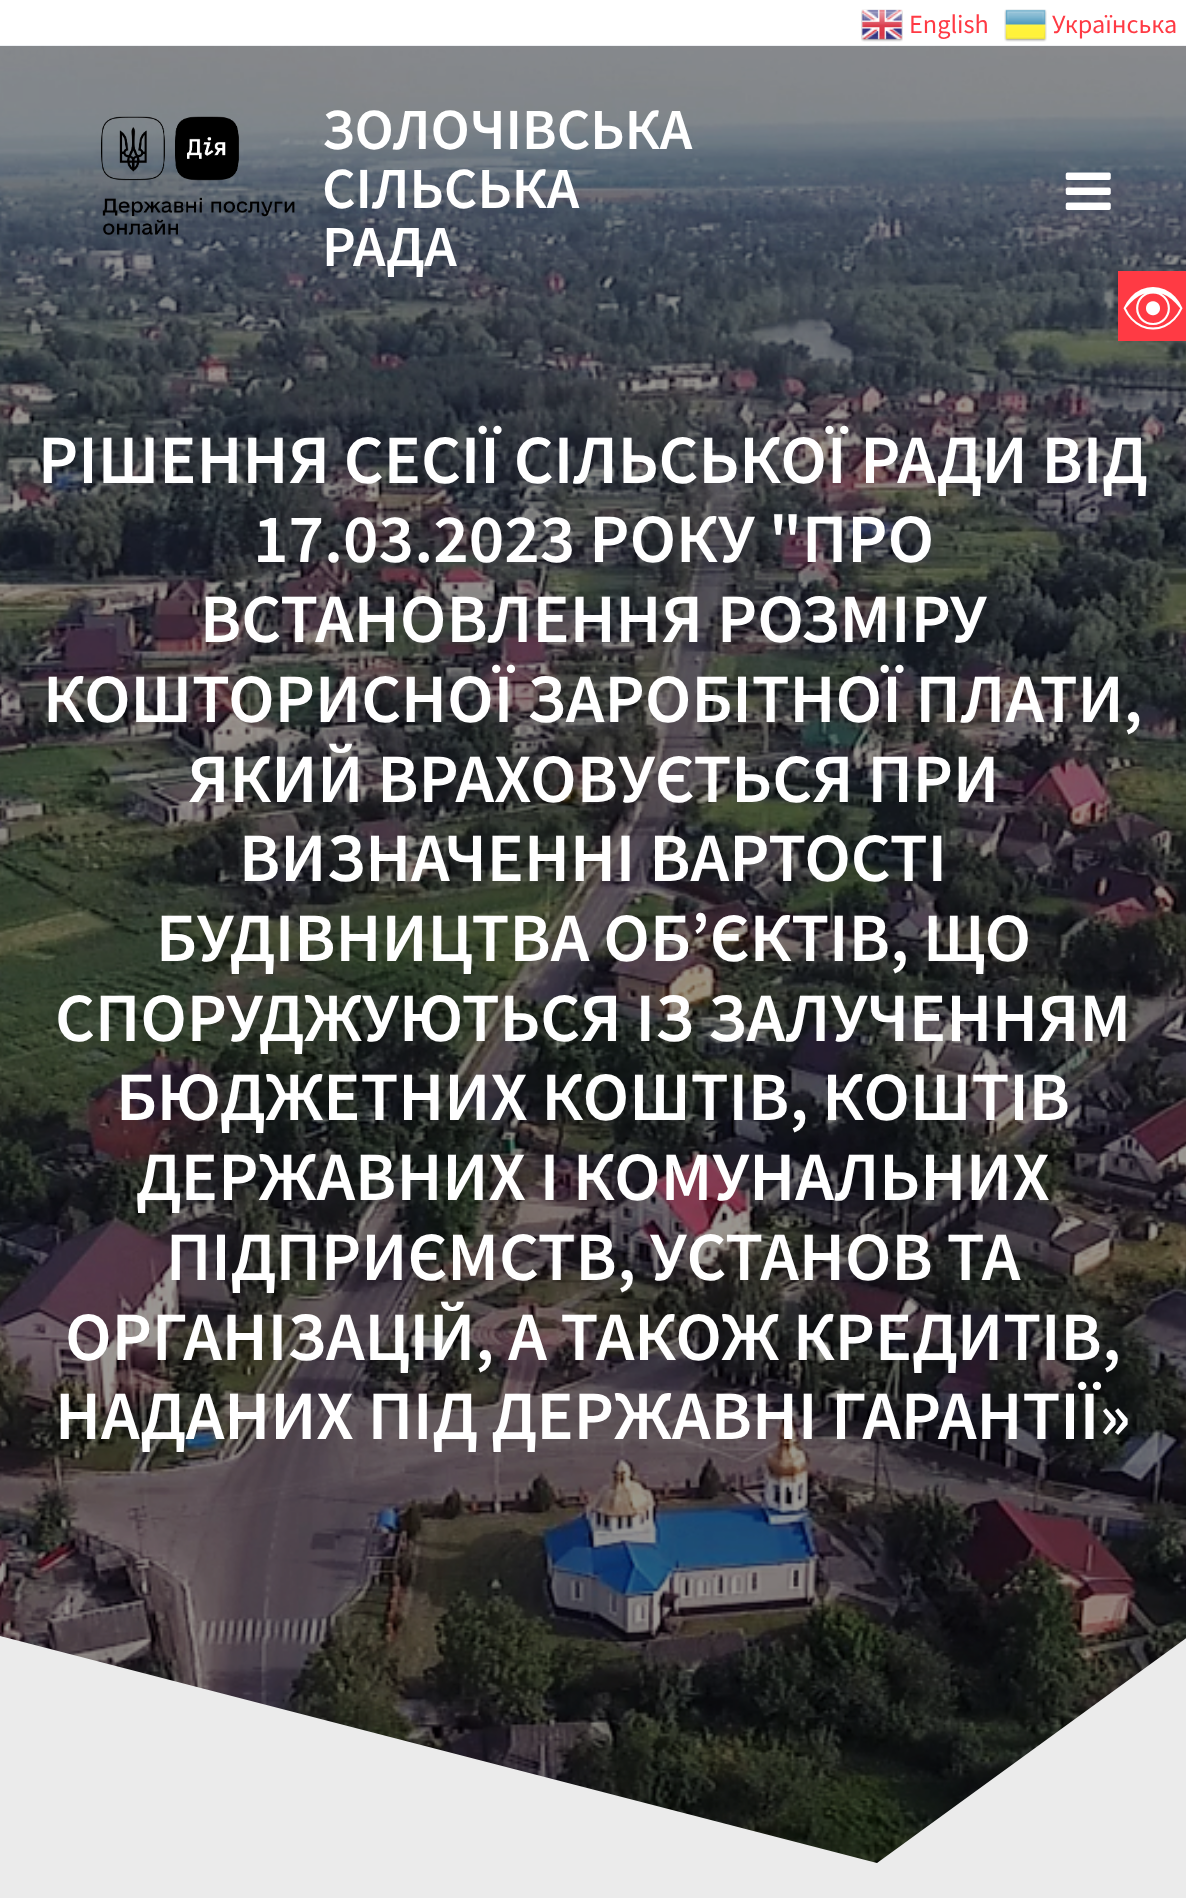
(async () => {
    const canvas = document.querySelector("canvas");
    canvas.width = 1186;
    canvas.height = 1898;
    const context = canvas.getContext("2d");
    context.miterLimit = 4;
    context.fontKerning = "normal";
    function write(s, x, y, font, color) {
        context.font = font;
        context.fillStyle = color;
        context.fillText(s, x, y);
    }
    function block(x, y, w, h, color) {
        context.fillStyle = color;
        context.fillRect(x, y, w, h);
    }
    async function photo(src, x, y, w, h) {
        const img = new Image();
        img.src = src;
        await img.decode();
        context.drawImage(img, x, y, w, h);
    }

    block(0, 0, 1186, 1898, "rgb(255, 255, 255)");
    await photo("media/1.png", 861, 9, 42, 33);
    write("English", 909, 33, "26.25px Source Sans Pro", "rgb(255, 58, 68)");
    await photo("media/2.png", 1004, 9, 43, 33);
    write("Українська", 1052, 33, "26.25px Source Sans Pro", "rgb(255, 58, 68)");
    await photo("media/5.png", 0, 45, 1186, 1818);
    await photo("media/3.png", 101, 116, 194, 119);
    write("ЗОЛОЧІВСЬКА", 322, 149, "600 58.25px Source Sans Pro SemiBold", "rgb(255, 255, 255)");
    write("СІЛЬСЬКА", 322, 208, "600 58.25px Source Sans Pro SemiBold", "rgb(255, 255, 255)");
    write("РАДА", 322, 266, "600 58.25px Source Sans Pro SemiBold", "rgb(255, 255, 255)");
    await photo("media/4.png", 1065, 172, 46, 38);
    block(1118, 271, 68, 70, "rgb(255, 58, 68)");
    write("👁", 1120, 326, "52px Noto Emoji", "rgb(255, 255, 255)");
    write("РІШЕННЯ СЕСІЇ СІЛЬСЬКОЇ РАДИ ВІД", 38, 483, "600 69.25px Source Sans Pro SemiBold", "rgb(255, 255, 255)");
    write("17.03.2023 РОКУ \"ПРО", 253, 562, "600 69.25px Source Sans Pro SemiBold", "rgb(255, 255, 255)");
    write("ВСТАНОВЛЕННЯ РОЗМІРУ", 200, 642, "600 69.25px Source Sans Pro SemiBold", "rgb(255, 255, 255)");
    write("КОШТОРИСНОЇ ЗАРОБІТНОЇ ПЛАТИ,", 43, 722, "600 69.25px Source Sans Pro SemiBold", "rgb(255, 255, 255)");
    write("ЯКИЙ ВРАХОВУЄТЬСЯ ПРИ", 188, 802, "600 69.25px Source Sans Pro SemiBold", "rgb(255, 255, 255)");
    write("ВИЗНАЧЕННІ ВАРТОСТІ", 239, 881, "600 69.25px Source Sans Pro SemiBold", "rgb(255, 255, 255)");
    write("БУДІВНИЦТВА ОБ’ЄКТІВ, ЩО", 156, 961, "600 69.25px Source Sans Pro SemiBold", "rgb(255, 255, 255)");
    write("СПОРУДЖУЮТЬСЯ ІЗ ЗАЛУЧЕННЯМ", 55, 1041, "600 69.25px Source Sans Pro SemiBold", "rgb(255, 255, 255)");
    write("БЮДЖЕТНИХ КОШТІВ, КОШТІВ", 116, 1120, "600 69.25px Source Sans Pro SemiBold", "rgb(255, 255, 255)");
    write("ДЕРЖАВНИХ І КОМУНАЛЬНИХ", 136, 1200, "600 69.25px Source Sans Pro SemiBold", "rgb(255, 255, 255)");
    write("ПІДПРИЄМСТВ, УСТАНОВ ТА", 166, 1280, "600 69.25px Source Sans Pro SemiBold", "rgb(255, 255, 255)");
    write("ОРГАНІЗАЦІЙ, А ТАКОЖ КРЕДИТІВ,", 65, 1360, "600 69.25px Source Sans Pro SemiBold", "rgb(255, 255, 255)");
    write("НАДАНИХ ПІД ДЕРЖАВНІ ГАРАНТІЇ»", 55, 1439, "600 69.25px Source Sans Pro SemiBold", "rgb(255, 255, 255)");
    context.fillStyle = "rgb(235, 235, 235)";
    context.beginPath();
    context.moveTo(877, 1863);
    context.lineTo(0, 1636);
    context.lineTo(0, 1876);
    context.lineTo(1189, 1876);
    context.lineTo(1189, 1636);
    context.closePath();
    context.fill();
    block(0, 1876, 1186, 22, "rgb(235, 235, 235)");
})();
